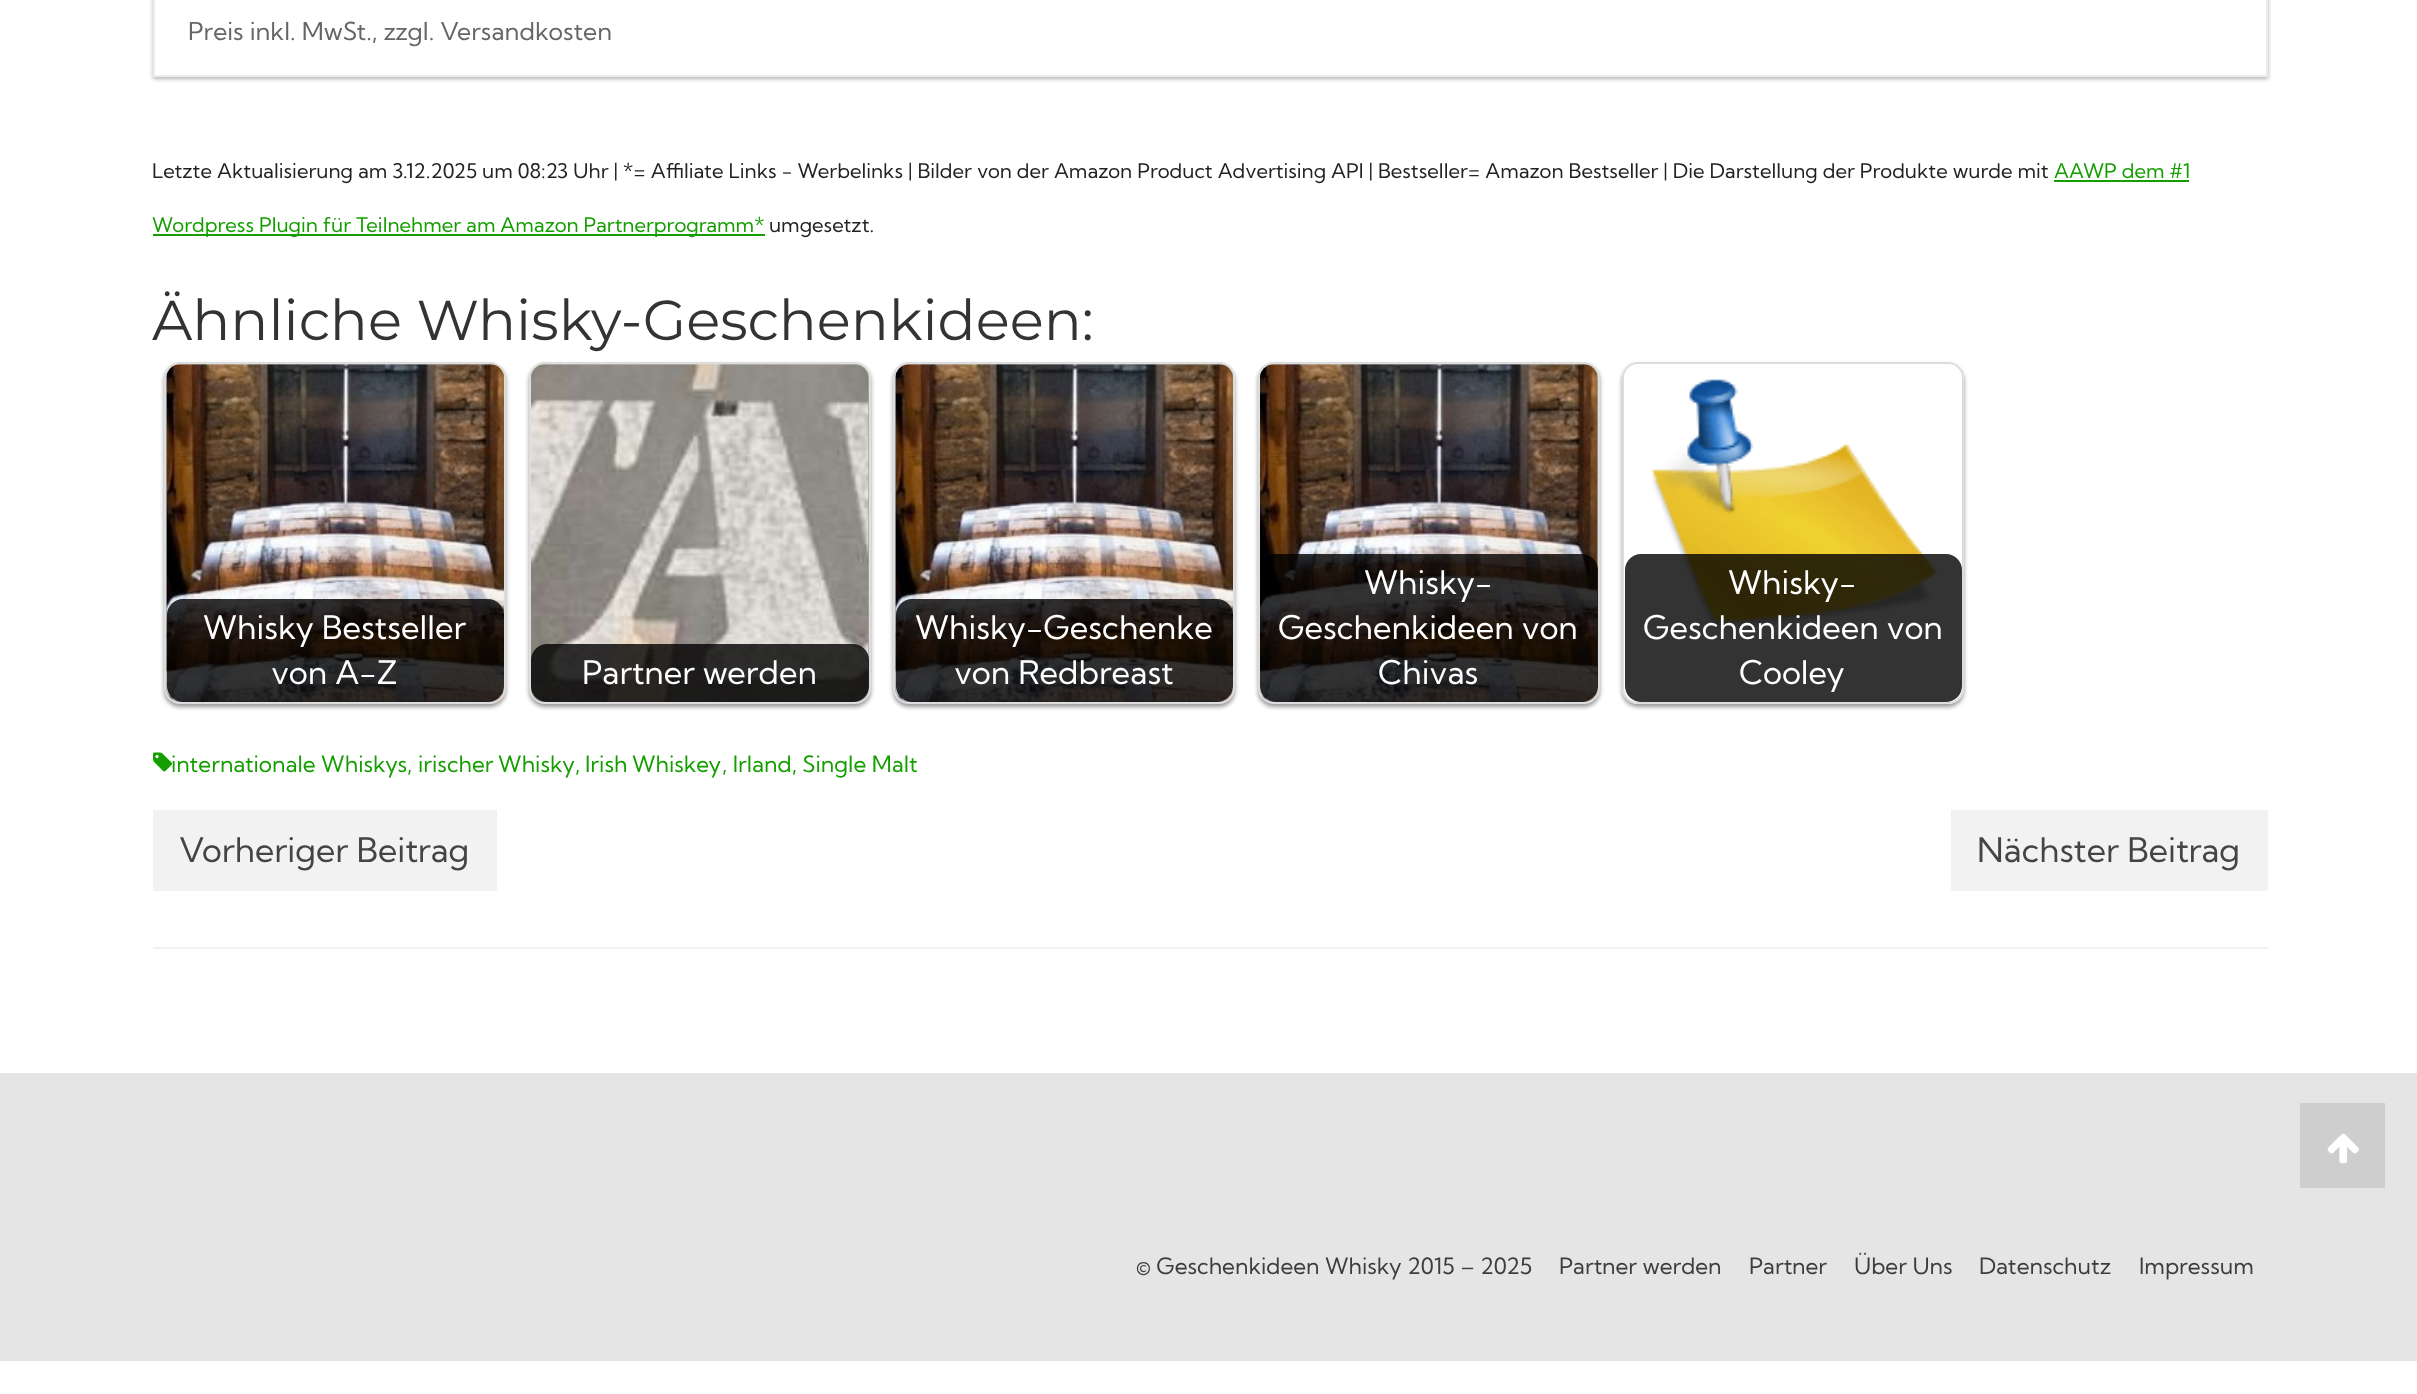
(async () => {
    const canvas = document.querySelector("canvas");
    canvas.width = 2417;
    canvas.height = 1394;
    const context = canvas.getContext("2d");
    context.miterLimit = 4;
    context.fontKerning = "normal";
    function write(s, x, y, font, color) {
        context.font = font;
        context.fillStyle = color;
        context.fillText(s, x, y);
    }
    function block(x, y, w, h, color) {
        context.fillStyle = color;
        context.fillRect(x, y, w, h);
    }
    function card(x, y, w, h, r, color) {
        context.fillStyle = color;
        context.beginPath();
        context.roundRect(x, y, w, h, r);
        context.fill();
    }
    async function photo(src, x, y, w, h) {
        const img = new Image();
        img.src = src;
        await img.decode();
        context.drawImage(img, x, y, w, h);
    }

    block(0, 0, 2417, 1394, "rgb(255, 255, 255)");
    context.fillStyle = "rgba(0, 0, 0, 0.3)";
    context.filter = "blur(2px)";
    context.beginPath();
    context.rect(153, -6, 2115, 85);
    context.fill();
    context.filter = "none";
    context.fillStyle = "rgb(255, 255, 255)";
    context.beginPath();
    context.rect(154, -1, 2113, 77);
    context.fill();
    context.strokeStyle = "rgb(236, 236, 236)";
    context.lineWidth = 2;
    context.stroke();
    write("Preis inkl. MwSt., zzgl. Versandkosten", 188, 40, "24.75px Kumbh Sans", "rgb(102, 102, 102)");
    write("Letzte Aktualisierung am 3.12.2025 um 08:23 Uhr | *= Affiliate Links - Werbelinks | Bilder von der Amazon Product Advertising API | Bestseller= Amazon Bestseller | Die Darstellung der Produkte wurde mit", 152, 178, "20.25px Kumbh Sans", "rgb(34, 34, 34)");
    write("AAWP dem #1", 2054, 178, "20.25px Kumbh Sans", "rgb(20, 158, 0)");
    block(2054, 180, 135, 2, "rgb(20, 158, 0)");
    block(153, 234, 612, 2, "rgb(20, 158, 0)");
    write("Wordpress Plugin für Teilnehmer am Amazon Partnerprogramm*", 152, 232, "20.25px Kumbh Sans", "rgb(20, 158, 0)");
    write("umgesetzt.", 769, 232, "20.25px Kumbh Sans", "rgb(34, 34, 34)");
    write("Ähnliche Whisky-Geschenkideen:", 152, 340, "100 56.25px Montserrat", "rgb(51, 51, 51)");
    context.fillStyle = "rgba(0, 0, 0, 0.4)";
    context.filter = "blur(2px)";
    context.beginPath();
    context.roundRect(164, 365, 342, 342, 16);
    context.fill();
    context.filter = "none";
    context.beginPath();
    context.roundRect(165, 363, 340, 340, 15);
    context.strokeStyle = "rgb(221, 221, 221)";
    context.stroke();
    await photo("media/1.png", 166, 364, 338, 338);
    context.save();
    context.beginPath();
    context.roundRect(167, 365, 337, 337, 14);
    context.clip();
    card(167, 599, 337, 103, 16, "rgba(0, 0, 0, 0.8)");
    context.restore();
    write("Whisky Bestseller", 203, 639, "32.5px Kumbh Sans", "rgb(255, 255, 255)");
    write("von A-Z", 271, 684, "32.5px Kumbh Sans", "rgb(255, 255, 255)");
    context.fillStyle = "rgba(0, 0, 0, 0.4)";
    context.filter = "blur(2px)";
    context.beginPath();
    context.roundRect(529, 365, 342, 342, 16);
    context.fill();
    context.filter = "none";
    context.beginPath();
    context.roundRect(530, 363, 340, 340, 15);
    context.stroke();
    await photo("media/2.png", 531, 364, 338, 338);
    context.save();
    context.beginPath();
    context.roundRect(531, 365, 338, 337, 14);
    context.clip();
    card(531, 644, 338, 58, 16, "rgba(0, 0, 0, 0.8)");
    context.restore();
    write("Partner werden", 582, 684, "32.5px Kumbh Sans", "rgb(255, 255, 255)");
    context.fillStyle = "rgba(0, 0, 0, 0.4)";
    context.filter = "blur(2px)";
    context.beginPath();
    context.roundRect(893, 365, 342, 342, 16);
    context.fill();
    context.filter = "none";
    context.beginPath();
    context.roundRect(894, 363, 340, 340, 15);
    context.stroke();
    await photo("media/3.png", 895, 364, 338, 338);
    context.save();
    context.beginPath();
    context.roundRect(896, 365, 337, 337, 14);
    context.clip();
    card(896, 599, 337, 103, 16, "rgba(0, 0, 0, 0.8)");
    context.restore();
    write("Whisky-Geschenke", 915, 639, "32.5px Kumbh Sans", "rgb(255, 255, 255)");
    write("von Redbreast", 954, 684, "32.5px Kumbh Sans", "rgb(255, 255, 255)");
    context.fillStyle = "rgba(0, 0, 0, 0.4)";
    context.filter = "blur(2px)";
    context.beginPath();
    context.roundRect(1258, 365, 342, 342, 16);
    context.fill();
    context.filter = "none";
    context.beginPath();
    context.roundRect(1259, 363, 340, 340, 15);
    context.stroke();
    await photo("media/4.png", 1260, 364, 338, 338);
    context.save();
    context.beginPath();
    context.roundRect(1260, 365, 338, 337, 14);
    context.clip();
    card(1260, 554, 338, 148, 16, "rgba(0, 0, 0, 0.8)");
    context.restore();
    write("Whisky-", 1364, 594, "32.5px Kumbh Sans", "rgb(255, 255, 255)");
    write("Geschenkideen von", 1278, 639, "32.5px Kumbh Sans", "rgb(255, 255, 255)");
    write("Chivas", 1378, 684, "32.5px Kumbh Sans", "rgb(255, 255, 255)");
    context.save();
    context.beginPath();
    context.moveTo(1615, 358);
    context.lineTo(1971, 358);
    context.lineTo(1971, 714);
    context.lineTo(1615, 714);
    context.closePath();
    context.moveTo(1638, 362);
    context.lineTo(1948, 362);
    context.bezierCurveTo(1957, 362, 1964, 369, 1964, 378);
    context.lineTo(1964, 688);
    context.bezierCurveTo(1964, 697, 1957, 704, 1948, 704);
    context.lineTo(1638, 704);
    context.bezierCurveTo(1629, 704, 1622, 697, 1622, 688);
    context.lineTo(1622, 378);
    context.bezierCurveTo(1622, 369, 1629, 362, 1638, 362);
    context.closePath();
    context.clip("evenodd");
    context.fillStyle = "rgba(0, 0, 0, 0.4)";
    context.filter = "blur(2px)";
    context.beginPath();
    context.roundRect(1622, 365, 342, 342, 16);
    context.fill();
    context.filter = "none";
    context.restore();
    context.beginPath();
    context.roundRect(1623, 363, 340, 340, 15);
    context.stroke();
    await photo("media/5.png", 1651, 379, 287, 250);
    context.save();
    context.beginPath();
    context.roundRect(1625, 365, 337, 337, 14);
    context.clip();
    card(1625, 554, 337, 148, 16, "rgba(0, 0, 0, 0.8)");
    context.restore();
    write("Whisky-", 1728, 594, "32.5px Kumbh Sans", "rgb(255, 255, 255)");
    write("Geschenkideen von", 1643, 639, "32.5px Kumbh Sans", "rgb(255, 255, 255)");
    write("Cooley", 1739, 684, "32.5px Kumbh Sans", "rgb(255, 255, 255)");
    block(153, 947, 2115, 2, "rgb(242, 242, 242)");
    await photo("media/6.png", 153, 752, 19, 20);
    write("internationale Whiskys,", 171, 772, "22.5px Kumbh Sans", "rgb(20, 158, 0)");
    context.wordSpacing = "-1px";
    write("irischer Whisky", 418, 772, "22.5px Kumbh Sans", "rgb(20, 158, 0)");
    context.wordSpacing = "0px";
    write(",", 575, 772, "22.5px Kumbh Sans", "rgb(20, 158, 0)");
    context.wordSpacing = "-1px";
    write("Irish Whiskey", 585, 772, "22.5px Kumbh Sans", "rgb(20, 158, 0)");
    context.wordSpacing = "0px";
    write(", Irland, Single Malt", 722, 772, "22.5px Kumbh Sans", "rgb(20, 158, 0)");
    block(153, 810, 344, 81, "rgb(242, 242, 242)");
    write("Vorheriger Beitrag", 179, 862, "33.75px Kumbh Sans", "rgb(68, 68, 68)");
    block(1951, 810, 317, 81, "rgb(242, 242, 242)");
    write("Nächster Beitrag", 1977, 862, "33.75px Kumbh Sans", "rgb(68, 68, 68)");
    block(0, 1073, 2417, 288, "rgb(229, 229, 229)");
    write("© Geschenkideen Whisky 2015 – 2025", 1136, 1274, "22.5px Kumbh Sans", "rgb(61, 61, 61)");
    write("Partner werden", 1559, 1274, "22.5px Kumbh Sans", "rgb(61, 61, 61)");
    write("Partner", 1749, 1274, "22.5px Kumbh Sans", "rgb(61, 61, 61)");
    write("Über Uns", 1854, 1274, "22.5px Kumbh Sans", "rgb(61, 61, 61)");
    write("Datenschutz", 1979, 1274, "22.5px Kumbh Sans", "rgb(61, 61, 61)");
    write("Impressum", 2139, 1274, "22.5px Kumbh Sans", "rgb(61, 61, 61)");
    block(2300, 1103, 85, 85, "rgb(206, 206, 206)");
    await photo("media/7.png", 2327, 1133, 32, 31);
})();
